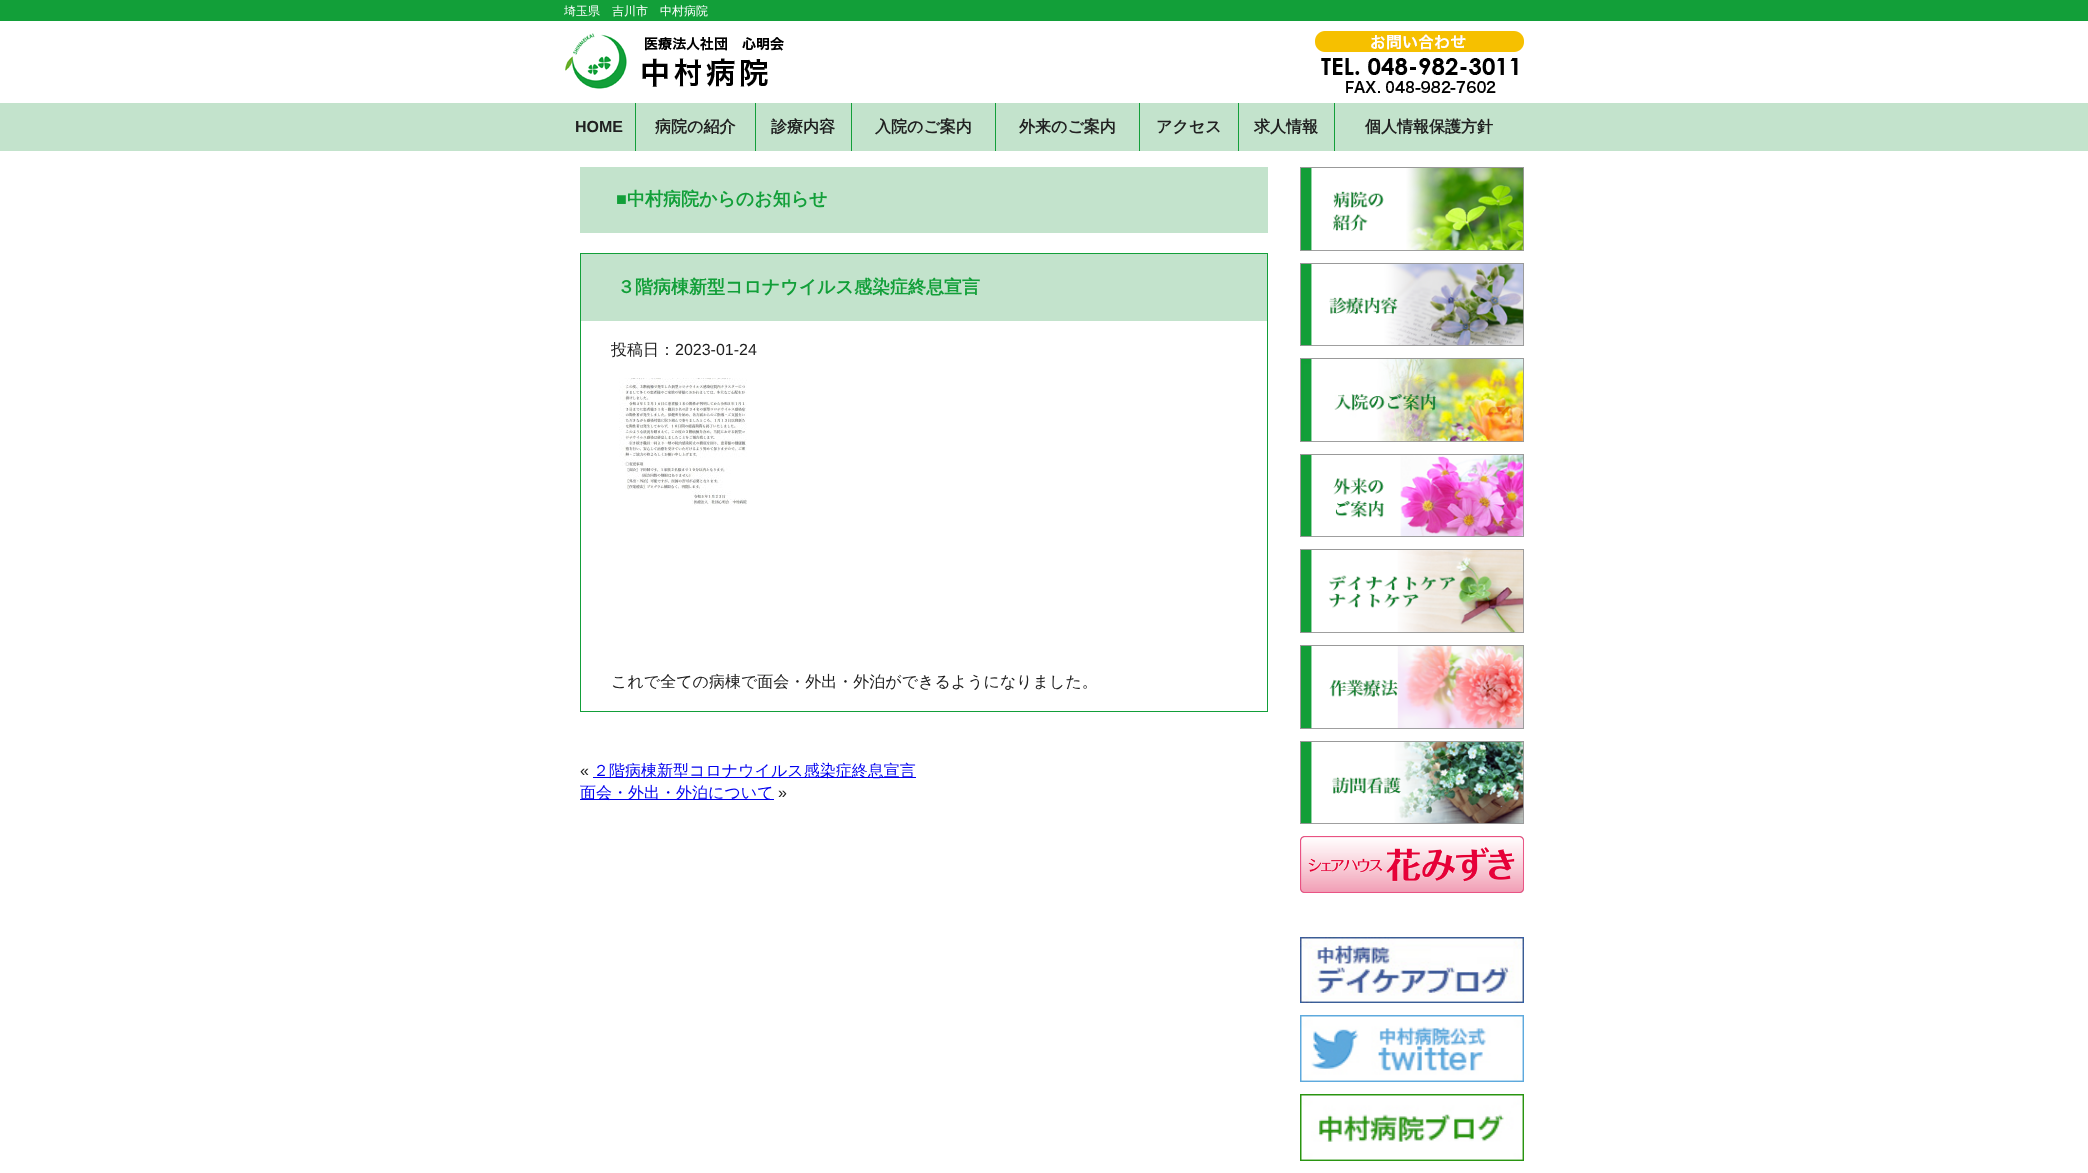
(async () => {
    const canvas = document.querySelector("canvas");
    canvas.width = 2088;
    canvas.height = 1173;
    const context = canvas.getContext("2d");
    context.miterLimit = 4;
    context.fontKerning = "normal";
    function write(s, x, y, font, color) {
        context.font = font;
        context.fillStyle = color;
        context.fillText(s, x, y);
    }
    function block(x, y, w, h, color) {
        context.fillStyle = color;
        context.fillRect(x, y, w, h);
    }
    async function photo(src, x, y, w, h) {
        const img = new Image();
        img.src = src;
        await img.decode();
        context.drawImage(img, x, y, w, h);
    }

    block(0, 0, 2088, 1173, "rgb(255, 255, 255)");
    block(0, 0, 2088, 21, "rgb(18, 159, 57)");
    write("埼玉県　吉川市　中村病院", 564, 15, "500 12px WenQuanYi Zen Hei", "rgb(254, 254, 254)");
    await photo("media/1.png", 565, 33, 219, 56);
    await photo("media/2.png", 1315, 31, 209, 62);
    block(0, 103, 2088, 48, "rgb(195, 227, 204)");
    write("HOME", 575, 132, "bold 16px Liberation Sans", "rgb(32, 32, 32)");
    block(635, 103, 1, 48, "rgb(18, 159, 57)");
    write("病院の紹介", 655, 132, "bold 16px WenQuanYi Zen Hei", "rgb(32, 32, 32)");
    block(755, 103, 1, 48, "rgb(18, 159, 57)");
    write("診療内容", 771, 132, "bold 16px WenQuanYi Zen Hei", "rgb(32, 32, 32)");
    block(851, 103, 1, 48, "rgb(18, 159, 57)");
    write("入院のご案内", 875, 132, "bold 16px WenQuanYi Zen Hei", "rgb(32, 32, 32)");
    block(995, 103, 1, 48, "rgb(18, 159, 57)");
    write("外来のご案内", 1019, 132, "bold 16px WenQuanYi Zen Hei", "rgb(32, 32, 32)");
    block(1139, 103, 1, 48, "rgb(18, 159, 57)");
    write("アクセス", 1156, 132, "bold 16px WenQuanYi Zen Hei", "rgb(32, 32, 32)");
    block(1238, 103, 1, 48, "rgb(18, 159, 57)");
    write("求人情報", 1254, 132, "bold 16px WenQuanYi Zen Hei", "rgb(32, 32, 32)");
    block(1334, 103, 1, 48, "rgb(18, 159, 57)");
    write("個人情報保護方針", 1365, 132, "bold 16px WenQuanYi Zen Hei", "rgb(32, 32, 32)");
    block(580, 167, 688, 66, "rgb(195, 227, 204)");
    write("■", 616, 205, "bold 18px Liberation Sans", "rgb(18, 159, 57)");
    write("中村病院からのお知らせ", 627, 205, "bold 18px WenQuanYi Zen Hei", "rgb(18, 159, 57)");
    context.strokeStyle = "rgb(18, 159, 57)";
    context.strokeRect(580.5, 253.5, 687, 458);
    block(581, 254, 686, 67, "rgb(195, 227, 204)");
    write("３階病棟新型コロナウイルス感染症終息宣言", 617, 293, "bold 18px WenQuanYi Zen Hei", "rgb(18, 159, 57)");
    write("投稿日：", 611, 355, "500 16px WenQuanYi Zen Hei", "rgb(32, 32, 32)");
    write("2023-01-24", 675, 355, "16px Liberation Sans", "rgb(32, 32, 32)");
    await photo("media/3.png", 619, 378, 128, 128);
    write("これで全ての病棟で面会・外出・外泊ができるようになりました。", 611, 687, "500 16px WenQuanYi Zen Hei", "rgb(32, 32, 32)");
    write("«", 580, 776, "16px Liberation Sans", "rgb(32, 32, 32)");
    block(593, 777, 323, 1, "rgb(0, 0, 238)");
    write("２階病棟新型コロナウイルス感染症終息宣言", 593, 776, "500 16px WenQuanYi Zen Hei", "rgb(0, 0, 238)");
    block(580, 799, 194, 1, "rgb(0, 0, 238)");
    write("面会・外出・外泊について", 580, 798, "500 16px WenQuanYi Zen Hei", "rgb(0, 0, 238)");
    write("»", 778, 798, "16px Liberation Sans", "rgb(32, 32, 32)");
    await photo("media/4.png", 1300, 167, 224, 84);
    await photo("media/5.png", 1300, 263, 224, 83);
    await photo("media/6.png", 1300, 358, 224, 84);
    await photo("media/7.png", 1300, 454, 224, 83);
    await photo("media/8.png", 1300, 549, 224, 84);
    await photo("media/9.png", 1300, 645, 224, 84);
    await photo("media/10.png", 1300, 741, 224, 83);
    await photo("media/11.png", 1300, 836, 224, 57);
    await photo("media/12.png", 1300, 937, 224, 66);
    await photo("media/13.png", 1300, 1015, 224, 67);
    await photo("media/14.png", 1300, 1094, 224, 67);
})();
